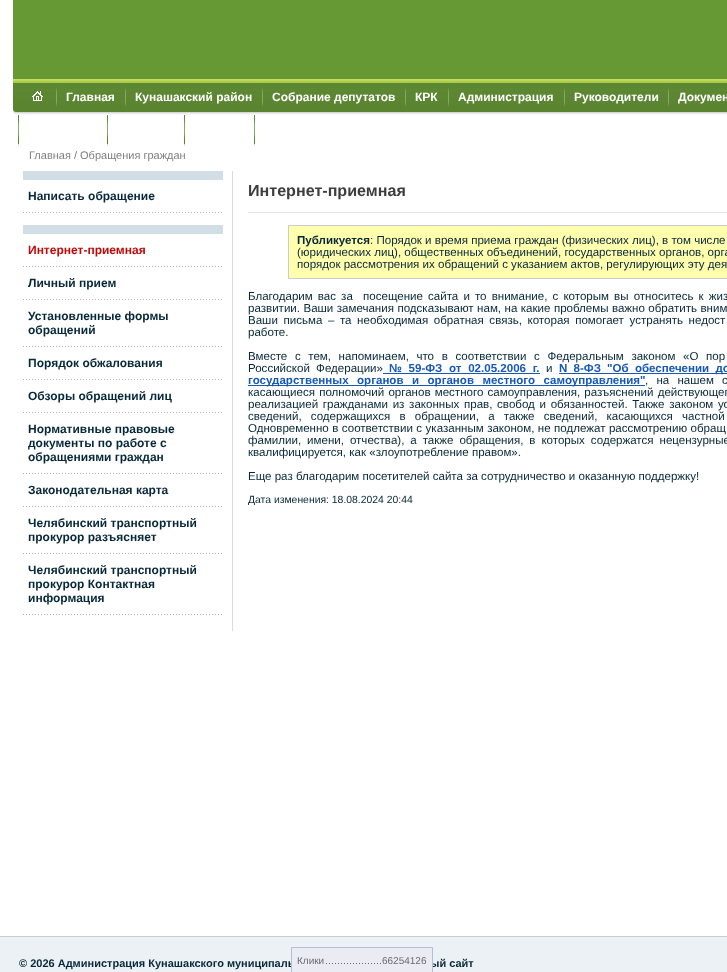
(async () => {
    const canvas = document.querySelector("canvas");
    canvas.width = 727;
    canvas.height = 972;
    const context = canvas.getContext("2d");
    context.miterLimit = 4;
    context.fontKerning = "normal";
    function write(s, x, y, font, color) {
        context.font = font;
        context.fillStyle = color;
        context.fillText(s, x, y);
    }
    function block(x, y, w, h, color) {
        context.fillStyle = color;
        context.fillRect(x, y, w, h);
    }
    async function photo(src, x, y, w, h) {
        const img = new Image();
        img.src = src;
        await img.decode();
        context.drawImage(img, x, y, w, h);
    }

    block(0, 0, 727, 972, "rgb(255, 255, 255)");
    block(13, 0, 714, 79, "rgb(102, 153, 51)");
    await photo("media/1.png", 13, 79, 714, 4);
    await photo("media/2.png", 13, 83, 5, 32);
    await photo("media/3.png", 13, 109, 3, 6);
    await photo("media/4.png", 18, 83, 709, 32);
    await photo("media/5.png", 32, 91, 11, 10);
    await photo("media/6.png", 56, 83, 1, 32);
    write("Главная", 66, 101, "bold 12px Liberation Sans", "rgb(255, 255, 255)");
    await photo("media/6.png", 125, 83, 1, 32);
    write("Кунашакский район", 135, 101, "bold 12px Liberation Sans", "rgb(255, 255, 255)");
    await photo("media/6.png", 262, 83, 1, 32);
    write("Собрание депутатов", 272, 101, "bold 12px Liberation Sans", "rgb(255, 255, 255)");
    await photo("media/6.png", 405, 83, 1, 32);
    write("КРК", 415, 101, "bold 12px Liberation Sans", "rgb(255, 255, 255)");
    await photo("media/6.png", 448, 83, 1, 32);
    write("Администрация", 458, 101, "bold 12px Liberation Sans", "rgb(255, 255, 255)");
    await photo("media/6.png", 564, 83, 1, 32);
    write("Руководители", 574, 101, "bold 12px Liberation Sans", "rgb(255, 255, 255)");
    await photo("media/6.png", 668, 83, 1, 32);
    write("Докумен", 678, 101, "bold 12px Liberation Sans", "rgb(255, 255, 255)");
    await photo("media/6.png", 18, 115, 1, 32);
    await photo("media/6.png", 107, 115, 1, 32);
    await photo("media/6.png", 184, 115, 1, 32);
    await photo("media/6.png", 254, 115, 1, 32);
    write("Главная / Обращения граждан", 29, 159, "11px Liberation Sans", "rgb(127, 127, 127)");
    block(232, 171, 1, 460, "rgb(219, 219, 219)");
    block(23, 171, 200, 9, "rgb(209, 222, 229)");
    write("Написать обращение", 28, 200, "bold 12px Liberation Sans", "rgb(7, 40, 56)");
    await photo("media/7.png", 23, 212, 199, 1);
    block(23, 225, 200, 9, "rgb(209, 222, 229)");
    write("Интернет-приемная", 28, 254, "bold 12px Liberation Sans", "rgb(195, 8, 8)");
    await photo("media/7.png", 23, 266, 199, 1);
    write("Личный прием", 28, 287, "bold 12px Liberation Sans", "rgb(7, 40, 56)");
    await photo("media/7.png", 23, 299, 199, 1);
    write("Установленные формы", 28, 320, "bold 12px Liberation Sans", "rgb(7, 40, 56)");
    write("обращений", 28, 334, "bold 12px Liberation Sans", "rgb(7, 40, 56)");
    await photo("media/7.png", 23, 346, 199, 1);
    write("Порядок обжалования", 28, 367, "bold 12px Liberation Sans", "rgb(7, 40, 56)");
    await photo("media/7.png", 23, 379, 199, 1);
    write("Обзоры обращений лиц", 28, 400, "bold 12px Liberation Sans", "rgb(7, 40, 56)");
    await photo("media/7.png", 23, 412, 199, 1);
    write("Нормативные правовые", 28, 433, "bold 12px Liberation Sans", "rgb(7, 40, 56)");
    write("документы по работе с", 28, 447, "bold 12px Liberation Sans", "rgb(7, 40, 56)");
    write("обращениями граждан", 28, 461, "bold 12px Liberation Sans", "rgb(7, 40, 56)");
    await photo("media/7.png", 23, 473, 199, 1);
    write("Законодательная карта", 28, 494, "bold 12px Liberation Sans", "rgb(7, 40, 56)");
    await photo("media/7.png", 23, 506, 199, 1);
    write("Челябинский транспортный", 28, 527, "bold 12px Liberation Sans", "rgb(7, 40, 56)");
    write("прокурор разъясняет", 28, 541, "bold 12px Liberation Sans", "rgb(7, 40, 56)");
    await photo("media/7.png", 23, 553, 199, 1);
    write("Челябинский транспортный", 28, 574, "bold 12px Liberation Sans", "rgb(7, 40, 56)");
    write("прокурор Контактная", 28, 588, "bold 12px Liberation Sans", "rgb(7, 40, 56)");
    write("информация", 28, 602, "bold 12px Liberation Sans", "rgb(7, 40, 56)");
    await photo("media/7.png", 23, 614, 199, 1);
    block(248, 212, 479, 1, "rgb(228, 231, 233)");
    write("Интернет-приемная", 248, 196, "bold 16.1px Liberation Sans", "rgb(61, 61, 61)");
    context.fillStyle = "rgb(255, 255, 173)";
    context.beginPath();
    context.rect(288.5, 225.5, 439, 53);
    context.fill();
    context.strokeStyle = "rgb(204, 204, 204)";
    context.stroke();
    write("Публикуется", 297, 244, "bold 11.55px Liberation Sans", "rgb(7, 40, 56)");
    write(": Порядок и время приема граждан (физических лиц), в том числе", 370, 244, "11.55px Liberation Sans", "rgb(7, 40, 56)");
    write("(юридических лиц), общественных объединений, государственных органов, орга", 297, 256, "11.55px Liberation Sans", "rgb(7, 40, 56)");
    write("порядок рассмотрения их обращений с указанием актов, регулирующих эту дея", 297, 268, "11.55px Liberation Sans", "rgb(7, 40, 56)");
    context.wordSpacing = "1.9px";
    write("Благодарим вас за  посещение сайта и то внимание, с которым вы относитесь к жиз", 248, 300, "11.55px Liberation Sans", "rgb(7, 40, 56)");
    context.wordSpacing = "0.25px";
    write("развитии. Ваши замечания подсказывают нам, на какие проблемы важно обратить вним", 248, 312, "11.55px Liberation Sans", "rgb(7, 40, 56)");
    context.wordSpacing = "2.4px";
    write("Ваши письма – та необходимая обратная связь, которая помогает устранять недост", 248, 324, "11.55px Liberation Sans", "rgb(7, 40, 56)");
    context.wordSpacing = "0px";
    write("работе.", 248, 336, "11.55px Liberation Sans", "rgb(7, 40, 56)");
    context.wordSpacing = "4.4px";
    write("Вместе с тем, напоминаем, что в соответствии с Федеральным законом «О пор", 248, 360, "11.55px Liberation Sans", "rgb(7, 40, 56)");
    context.wordSpacing = "3px";
    write("Российской Федерации»", 248, 372, "11.55px Liberation Sans", "rgb(7, 40, 56)");
    context.wordSpacing = "3.5px";
    write("№ 59-ФЗ от 02.05.2006 г.", 389, 372, "bold 11.55px Liberation Sans", "rgb(23, 89, 180)");
    block(383, 373, 157, 1, "rgb(23, 89, 180)");
    context.wordSpacing = "0px";
    write("и", 546, 372, "11.55px Liberation Sans", "rgb(7, 40, 56)");
    block(559, 373, 168, 1, "rgb(23, 89, 180)");
    context.wordSpacing = "3px";
    write("N 8-ФЗ \"Об обеспечении до", 559, 372, "bold 11.55px Liberation Sans", "rgb(23, 89, 180)");
    block(248, 385, 397, 1, "rgb(23, 89, 180)");
    context.wordSpacing = "5.25px";
    write("государственных органов и органов местного самоуправления\"", 248, 384, "bold 11.55px Liberation Sans", "rgb(23, 89, 180)");
    context.wordSpacing = "5px";
    write(", на нашем с", 645, 384, "11.55px Liberation Sans", "rgb(7, 40, 56)");
    context.wordSpacing = "1px";
    write("касающиеся полномочий органов местного самоуправления, разъяснений действующег", 248, 396, "11.55px Liberation Sans", "rgb(7, 40, 56)");
    context.wordSpacing = "1.5px";
    write("реализацией гражданами из законных прав, свобод и обязанностей. Также законом ус", 248, 408, "11.55px Liberation Sans", "rgb(7, 40, 56)");
    context.wordSpacing = "6px";
    write("сведений, содержащихся в обращении, а также сведений, касающихся частной", 248, 420, "11.55px Liberation Sans", "rgb(7, 40, 56)");
    context.wordSpacing = "0.25px";
    write("Одновременно в соответствии с указанным законом, не подлежат рассмотрению обращ", 248, 432, "11.55px Liberation Sans", "rgb(7, 40, 56)");
    context.wordSpacing = "2.75px";
    write("фамилии, имени, отчества), а также обращения, в которых содержатся нецензурные", 248, 444, "11.55px Liberation Sans", "rgb(7, 40, 56)");
    context.wordSpacing = "0px";
    write("квалифицируется, как «злоупотребление правом».", 248, 456, "11.55px Liberation Sans", "rgb(7, 40, 56)");
    write("Еще раз благодарим посетителей сайта за сотрудничество и оказанную поддержку!", 248, 480, "11.55px Liberation Sans", "rgb(7, 40, 56)");
    write("Дата изменения: 18.08.2024 20:44", 248, 503, "10.4px Liberation Sans", "rgb(7, 40, 56)");
    block(0, 937, 727, 35, "rgb(235, 241, 244)");
    block(0, 936, 727, 1, "rgb(204, 204, 204)");
    write("© 2026 Администрация Кунашакского муниципаль", 19, 967, "bold 11px Liberation Sans", "rgb(7, 40, 56)");
    write("ый сайт", 430, 967, "bold 11px Liberation Sans", "rgb(7, 40, 56)");
    context.fillStyle = "rgb(235, 236, 243)";
    context.beginPath();
    context.rect(291.5, 947.5, 141, 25);
    context.fill();
    context.strokeStyle = "rgb(183, 188, 219)";
    context.stroke();
    await photo("media/8.png", 326, 963, 55, 1);
    write("Клики", 297, 964, "10px Liberation Sans", "rgb(105, 108, 114)");
    write("66254126", 382, 964, "10px Liberation Sans", "rgb(105, 108, 114)");
})();
